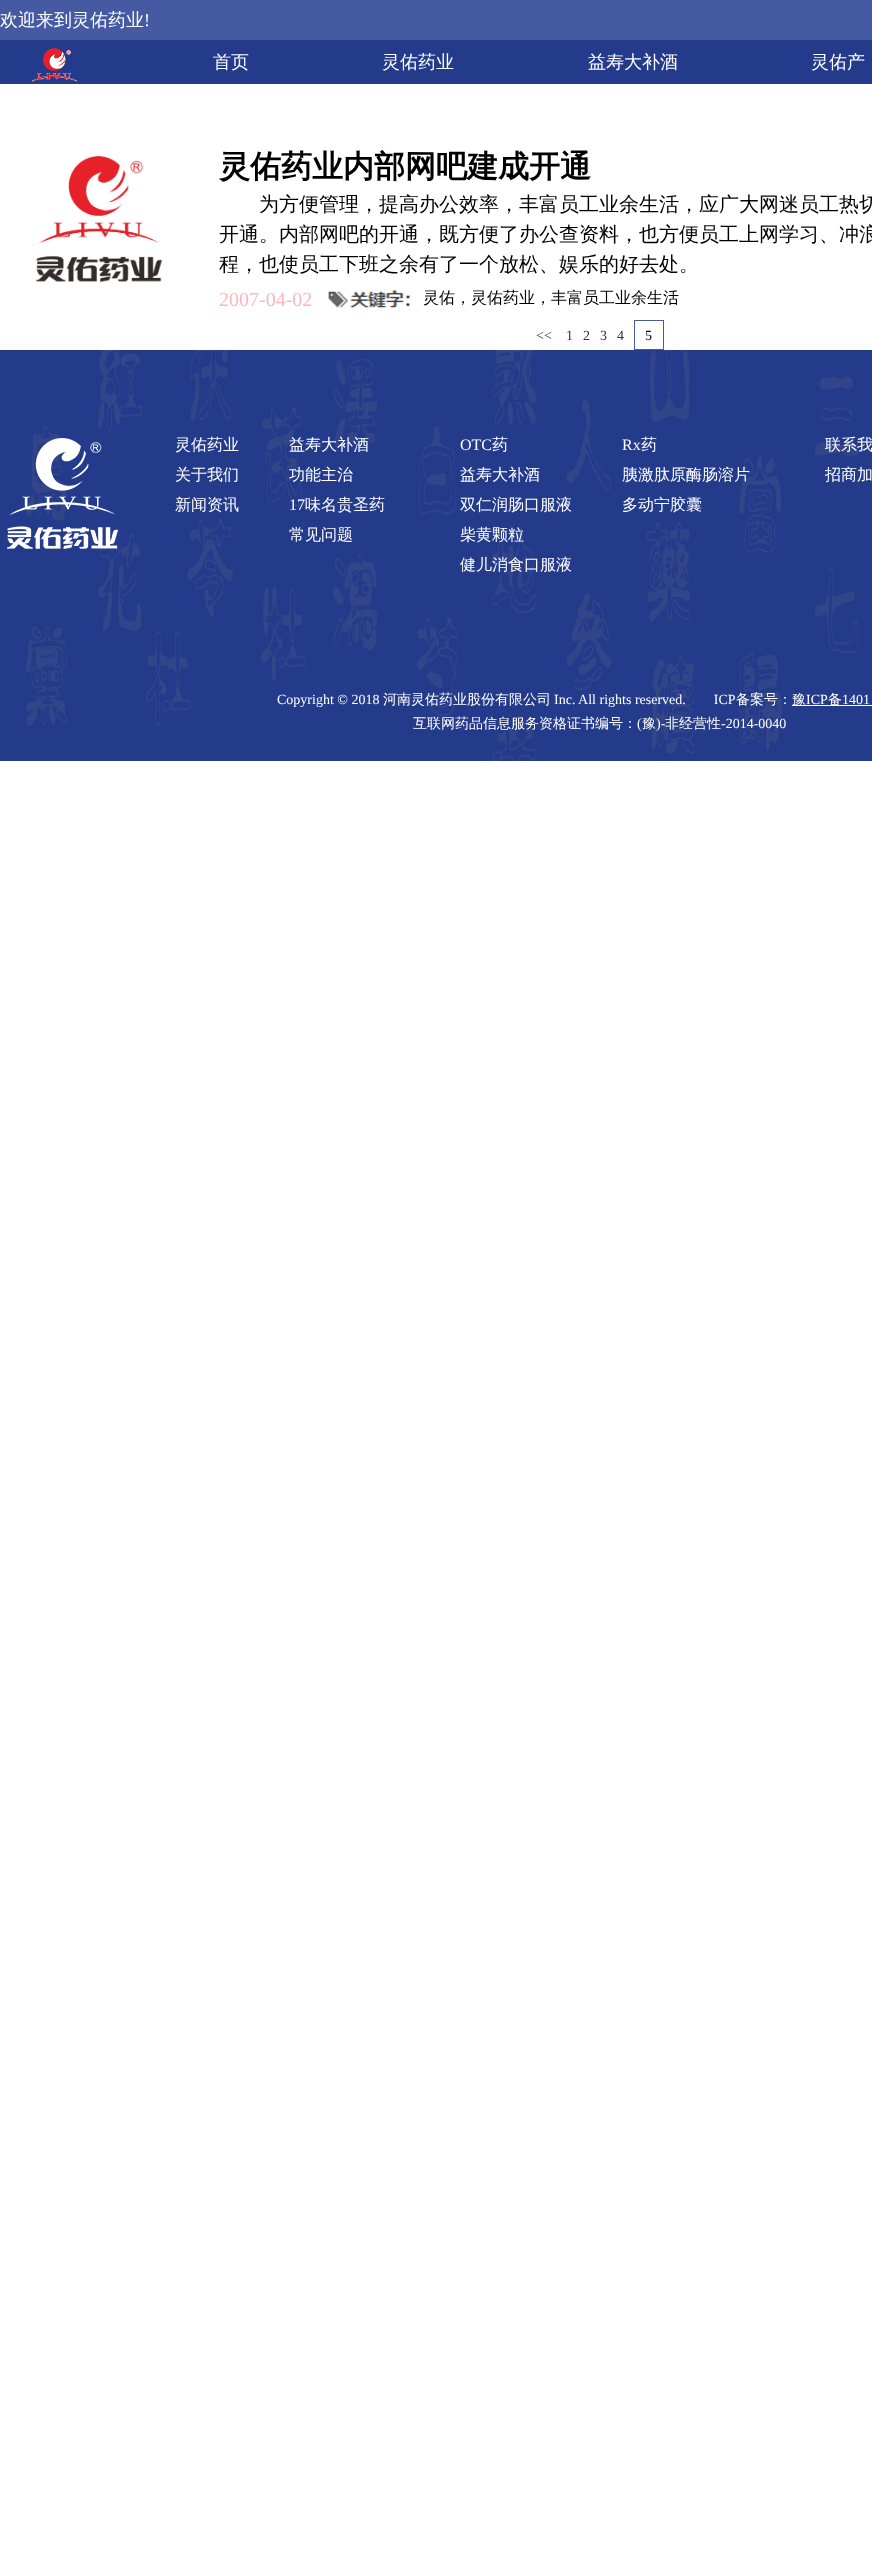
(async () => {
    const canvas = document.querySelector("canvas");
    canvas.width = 872;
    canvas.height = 2551;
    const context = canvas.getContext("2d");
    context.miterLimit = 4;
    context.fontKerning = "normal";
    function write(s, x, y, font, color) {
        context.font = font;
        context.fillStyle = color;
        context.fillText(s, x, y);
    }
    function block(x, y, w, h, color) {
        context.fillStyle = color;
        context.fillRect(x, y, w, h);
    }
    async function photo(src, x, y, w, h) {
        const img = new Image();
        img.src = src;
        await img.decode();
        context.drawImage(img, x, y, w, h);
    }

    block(0, 0, 872, 2551, "rgb(255, 255, 255)");
    block(0, 0, 872, 40, "rgb(69, 90, 163)");
    write("欢迎来到灵佑药业", 0, 26, "500 18px WenQuanYi Zen Hei", "rgb(255, 255, 255)");
    write("!", 144, 26, "18px Liberation Serif", "rgb(255, 255, 255)");
    block(0, 40, 872, 44, "rgb(36, 59, 139)");
    await photo("media/1.png", 32, 48, 45, 34);
    write("首页", 213, 68, "500 18px WenQuanYi Zen Hei", "rgb(255, 255, 255)");
    write("灵佑药业", 382, 68, "500 18px WenQuanYi Zen Hei", "rgb(255, 255, 255)");
    write("益寿大补酒", 588, 68, "500 18px WenQuanYi Zen Hei", "rgb(255, 255, 255)");
    write("灵佑产", 811, 68, "500 18px WenQuanYi Zen Hei", "rgb(255, 255, 255)");
    await photo("media/2.png", 35, 155, 128, 128);
    write("灵佑药业内部网吧建成开通", 219, 177, "bold 31px WenQuanYi Zen Hei", "rgb(0, 0, 0)");
    write("为方便管理，提高办公效率，丰富员工业余生活，应广大网迷员工热切", 259, 211, "500 20px WenQuanYi Zen Hei", "rgb(0, 0, 0)");
    write("开通。内部网吧的开通，既方便了办公查资料，也方便员工上网学习、冲浪", 219, 241, "500 20px WenQuanYi Zen Hei", "rgb(0, 0, 0)");
    write("程，也使员工下班之余有了一个放松、娱乐的好去处。", 219, 271, "500 20px WenQuanYi Zen Hei", "rgb(0, 0, 0)");
    write("2007-04-02", 219, 306, "20px Liberation Serif", "rgb(252, 183, 190)");
    await photo("media/3.png", 328, 290, 83, 18);
    write("灵佑，灵佑药业，丰富员工业余生活", 423, 303, "500 16px WenQuanYi Zen Hei", "rgb(0, 0, 0)");
    write("<<", 536, 340, "14px Liberation Serif", "rgb(51, 51, 51)");
    write("1", 566, 340, "14px Liberation Serif", "rgb(51, 51, 51)");
    write("2", 583, 340, "14px Liberation Serif", "rgb(51, 51, 51)");
    write("3", 600, 340, "14px Liberation Serif", "rgb(51, 51, 51)");
    write("4", 617, 340, "14px Liberation Serif", "rgb(51, 51, 51)");
    context.strokeStyle = "rgb(69, 90, 163)";
    context.strokeRect(634.5, 320.5, 29, 29);
    write("5", 645, 340, "14px Liberation Serif", "rgb(0, 0, 0)");
    await photo("media/4.png", 0, 350, 872, 411);
    await photo("media/5.png", 7, 438, 111, 111);
    write("灵佑药业", 175, 450, "500 16px WenQuanYi Zen Hei", "rgb(255, 255, 255)");
    write("关于我们", 175, 480, "500 16px WenQuanYi Zen Hei", "rgb(255, 255, 255)");
    write("新闻资讯", 175, 510, "500 16px WenQuanYi Zen Hei", "rgb(255, 255, 255)");
    write("益寿大补酒", 289, 450, "500 16px WenQuanYi Zen Hei", "rgb(255, 255, 255)");
    write("功能主治", 289, 480, "500 16px WenQuanYi Zen Hei", "rgb(255, 255, 255)");
    write("17", 289, 510, "16px Liberation Serif", "rgb(255, 255, 255)");
    write("味名贵圣药", 305, 510, "500 16px WenQuanYi Zen Hei", "rgb(255, 255, 255)");
    write("常见问题", 289, 540, "500 16px WenQuanYi Zen Hei", "rgb(255, 255, 255)");
    write("OTC", 460, 450, "16px Liberation Serif", "rgb(255, 255, 255)");
    write("药", 492, 450, "500 16px WenQuanYi Zen Hei", "rgb(255, 255, 255)");
    write("益寿大补酒", 460, 480, "500 16px WenQuanYi Zen Hei", "rgb(255, 255, 255)");
    write("双仁润肠口服液", 460, 510, "500 16px WenQuanYi Zen Hei", "rgb(255, 255, 255)");
    write("柴黄颗粒", 460, 540, "500 16px WenQuanYi Zen Hei", "rgb(255, 255, 255)");
    write("健儿消食口服液", 460, 570, "500 16px WenQuanYi Zen Hei", "rgb(255, 255, 255)");
    write("Rx", 622, 450, "16px Liberation Serif", "rgb(255, 255, 255)");
    write("药", 641, 450, "500 16px WenQuanYi Zen Hei", "rgb(255, 255, 255)");
    write("胰激肽原酶肠溶片", 622, 480, "500 16px WenQuanYi Zen Hei", "rgb(255, 255, 255)");
    write("多动宁胶囊", 622, 510, "500 16px WenQuanYi Zen Hei", "rgb(255, 255, 255)");
    write("联系我", 825, 450, "500 16px WenQuanYi Zen Hei", "rgb(255, 255, 255)");
    write("招商加", 825, 480, "500 16px WenQuanYi Zen Hei", "rgb(255, 255, 255)");
    write("Copyright © 2018", 277, 704, "14px Liberation Serif", "rgb(255, 255, 255)");
    write("河南灵佑药业股份有限公司", 383, 704, "500 14px WenQuanYi Zen Hei", "rgb(255, 255, 255)");
    write("Inc. All rights reserved.        ICP", 554, 704, "14px Liberation Serif", "rgb(255, 255, 255)");
    write("备案号：", 736, 704, "500 14px WenQuanYi Zen Hei", "rgb(255, 255, 255)");
    block(792, 705, 80, 1, "rgb(254, 254, 254)");
    write("豫", 792, 704, "500 14px WenQuanYi Zen Hei", "rgb(255, 255, 255)");
    write("ICP", 806, 704, "14px Liberation Serif", "rgb(255, 255, 255)");
    write("备", 828, 704, "500 14px WenQuanYi Zen Hei", "rgb(255, 255, 255)");
    write("1401", 842, 704, "14px Liberation Serif", "rgb(255, 255, 255)");
    write("互联网药品信息服务资格证书编号：", 413, 728, "500 14px WenQuanYi Zen Hei", "rgb(255, 255, 255)");
    write("(", 637, 728, "14px Liberation Serif", "rgb(255, 255, 255)");
    write("豫", 642, 728, "500 14px WenQuanYi Zen Hei", "rgb(255, 255, 255)");
    write(")-", 656, 728, "14px Liberation Serif", "rgb(255, 255, 255)");
    write("非经营性", 665, 728, "500 14px WenQuanYi Zen Hei", "rgb(255, 255, 255)");
    write("-2014-0040", 721, 728, "14px Liberation Serif", "rgb(255, 255, 255)");
})();
